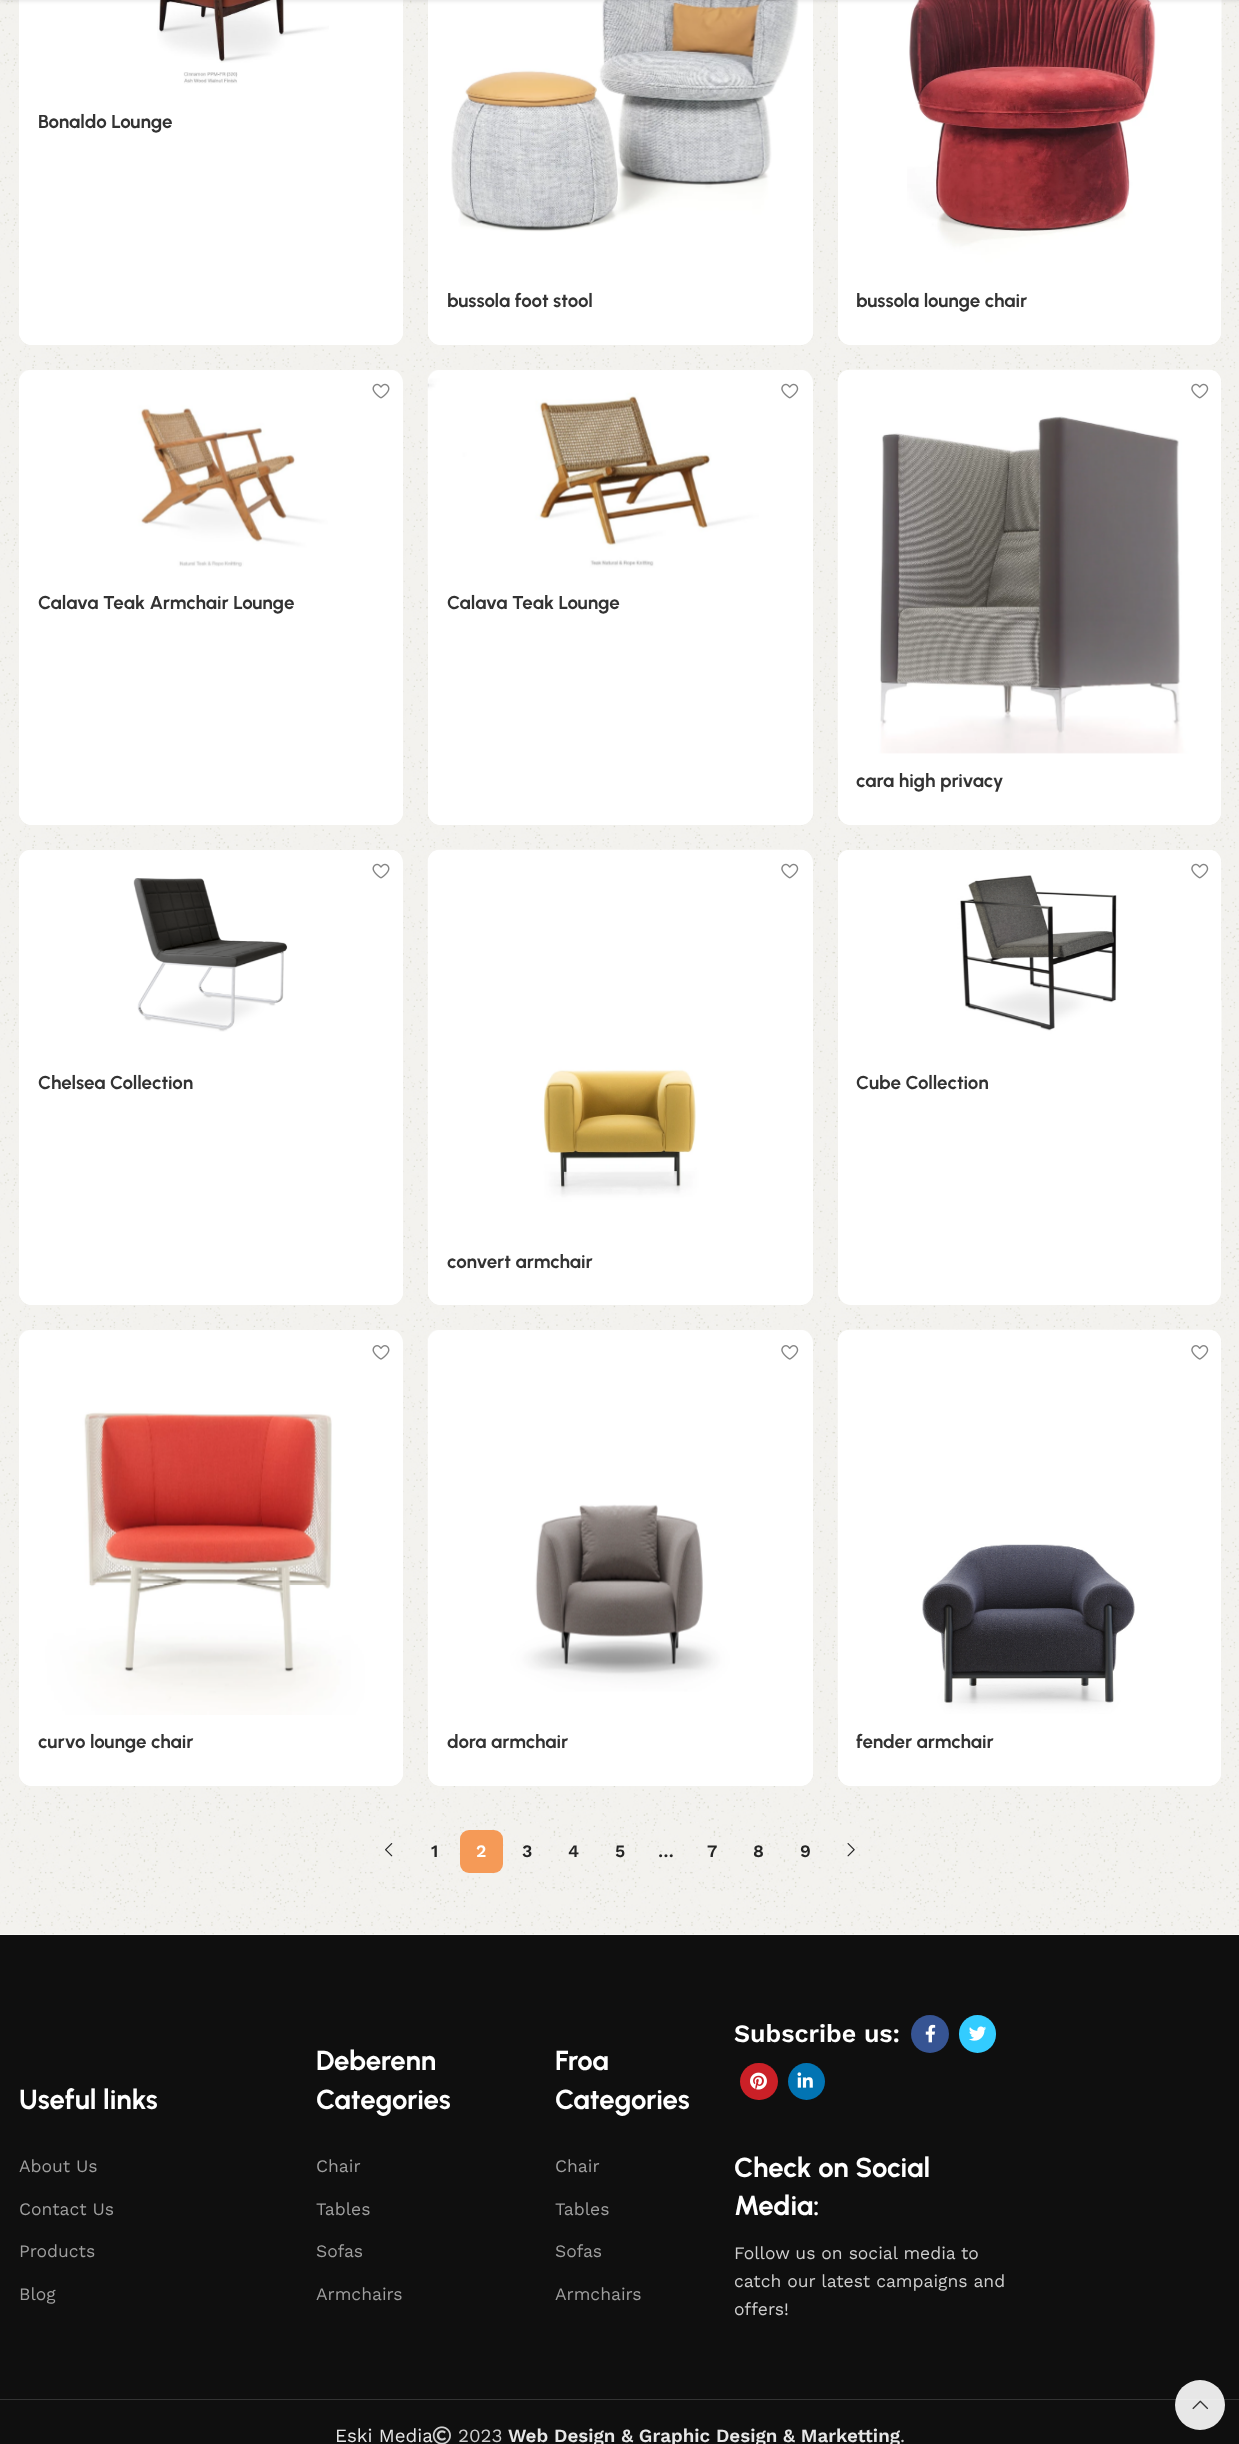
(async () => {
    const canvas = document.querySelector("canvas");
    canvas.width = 1239;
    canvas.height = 2444;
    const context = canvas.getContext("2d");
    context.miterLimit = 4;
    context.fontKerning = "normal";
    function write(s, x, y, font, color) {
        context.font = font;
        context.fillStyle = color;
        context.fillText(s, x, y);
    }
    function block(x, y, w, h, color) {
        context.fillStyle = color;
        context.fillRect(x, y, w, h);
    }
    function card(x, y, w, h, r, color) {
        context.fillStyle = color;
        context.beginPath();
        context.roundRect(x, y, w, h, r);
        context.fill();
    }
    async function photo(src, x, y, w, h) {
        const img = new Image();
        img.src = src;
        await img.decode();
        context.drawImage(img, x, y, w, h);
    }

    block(0, 0, 1239, 2444, "rgb(255, 255, 255)");
    await photo("media/1.png", 0, 0, 1239, 1935);
    card(19, -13, 384, 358, 13, "rgb(255, 255, 255)");
    await photo("media/2.png", 157, 0, 172, 84);
    card(428, -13, 385, 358, 13, "rgb(255, 255, 255)");
    await photo("media/3.png", 451, 0, 348, 232);
    card(838, -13, 383, 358, 13, "rgb(255, 255, 255)");
    await photo("media/4.png", 907, 0, 315, 273);
    context.fillStyle = "rgba(0, 0, 0, 0.1)";
    context.filter = "blur(2px)";
    context.beginPath();
    context.rect(0, -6, 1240, 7);
    context.fill();
    context.filter = "none";
    context.fillStyle = "rgb(255, 255, 255)";
    context.beginPath();
    context.roundRect(19, 95, 384, 250, [0, 0, 13, 13]);
    context.fill();
    write("Bonaldo Lounge", 38, 128, "bold 18.75px Urbanist", "rgb(51, 51, 51)");
    context.fillStyle = "rgb(255, 255, 255)";
    context.beginPath();
    context.roundRect(428, 274, 385, 71, [0, 0, 13, 13]);
    context.fill();
    write("bussola foot stool", 447, 307, "bold 18.75px Urbanist", "rgb(51, 51, 51)");
    context.fillStyle = "rgb(255, 255, 255)";
    context.beginPath();
    context.roundRect(838, 274, 383, 71, [0, 0, 13, 13]);
    context.fill();
    write("bussola lounge chair", 856, 307, "bold 18.75px Urbanist", "rgb(51, 51, 51)");
    card(19, 370, 384, 455, 13, "rgb(255, 255, 255)");
    await photo("media/5.png", 19, 370, 381, 197);
    await photo("media/6.png", 372, 383, 18, 16);
    context.beginPath();
    context.roundRect(19, 575, 384, 250, [0, 0, 13, 13]);
    context.fill();
    write("Calava Teak Armchair Lounge", 38, 609, "bold 18.75px Urbanist", "rgb(51, 51, 51)");
    card(428, 370, 385, 455, 13, "rgb(255, 255, 255)");
    await photo("media/7.png", 427, 370, 383, 205);
    await photo("media/8.png", 781, 383, 18, 16);
    context.beginPath();
    context.roundRect(428, 575, 385, 250, [0, 0, 13, 13]);
    context.fill();
    write("Calava Teak Lounge", 447, 609, "bold 18.75px Urbanist", "rgb(51, 51, 51)");
    card(838, 370, 383, 455, 13, "rgb(255, 255, 255)");
    await photo("media/9.png", 837, 369, 384, 385);
    await photo("media/8.png", 1191, 383, 18, 16);
    context.beginPath();
    context.roundRect(838, 754, 383, 71, [0, 0, 13, 13]);
    context.fill();
    write("cara high privacy", 856, 787, "bold 18.75px Urbanist", "rgb(51, 51, 51)");
    card(19, 850, 384, 455, 13, "rgb(255, 255, 255)");
    await photo("media/10.png", 19, 850, 382, 182);
    await photo("media/6.png", 372, 863, 18, 16);
    context.beginPath();
    context.roundRect(19, 1055, 384, 250, [0, 0, 13, 13]);
    context.fill();
    write("Chelsea Collection", 38, 1089, "bold 18.75px Urbanist", "rgb(51, 51, 51)");
    await photo("media/11.png", 838, 850, 384, 205);
    await photo("media/8.png", 1191, 863, 18, 16);
    context.fillStyle = "rgb(255, 255, 255)";
    context.beginPath();
    context.roundRect(838, 1055, 383, 250, [0, 0, 13, 13]);
    context.fill();
    write("Cube Collection", 856, 1089, "bold 18.75px Urbanist", "rgb(51, 51, 51)");
    card(428, 850, 385, 455, 13, "rgb(255, 255, 255)");
    await photo("media/12.png", 427, 849, 384, 384);
    await photo("media/8.png", 781, 863, 18, 16);
    context.beginPath();
    context.roundRect(428, 1234, 385, 71, [0, 0, 13, 13]);
    context.fill();
    write("convert armchair", 447, 1268, "bold 18.75px Urbanist", "rgb(51, 51, 51)");
    card(19, 1330, 384, 456, 13, "rgb(255, 255, 255)");
    await photo("media/13.png", 19, 1330, 381, 385);
    await photo("media/14.png", 372, 1345, 18, 15);
    context.beginPath();
    context.roundRect(19, 1715, 384, 71, [0, 0, 13, 13]);
    context.fill();
    write("curvo lounge chair", 38, 1748, "bold 18.75px Urbanist", "rgb(51, 51, 51)");
    card(428, 1330, 385, 456, 13, "rgb(255, 255, 255)");
    await photo("media/15.png", 427, 1330, 383, 385);
    await photo("media/16.png", 781, 1345, 18, 15);
    context.beginPath();
    context.roundRect(428, 1715, 385, 71, [0, 0, 13, 13]);
    context.fill();
    write("dora armchair", 447, 1748, "bold 18.75px Urbanist", "rgb(51, 51, 51)");
    card(838, 1330, 383, 456, 13, "rgb(255, 255, 255)");
    await photo("media/17.png", 837, 1329, 384, 385);
    await photo("media/16.png", 1191, 1345, 18, 15);
    context.beginPath();
    context.roundRect(838, 1715, 383, 71, [0, 0, 13, 13]);
    context.fill();
    write("fender armchair", 856, 1748, "bold 18.75px Urbanist", "rgb(51, 51, 51)");
    await photo("media/18.png", 385, 1843, 8, 14);
    write("1", 431, 1857, "600 17.5px Work Sans", "rgb(36, 36, 36)");
    card(460, 1830, 43, 43, 9, "rgb(245, 154, 87)");
    write("2", 476, 1857, "600 17.5px Work Sans", "rgb(255, 255, 255)");
    write("3", 522, 1857, "600 17.5px Work Sans", "rgb(36, 36, 36)");
    write("4", 568, 1857, "600 17.5px Work Sans", "rgb(36, 36, 36)");
    write("5", 615, 1857, "600 17.5px Work Sans", "rgb(36, 36, 36)");
    write("…", 658, 1857, "600 17.5px Work Sans", "rgb(36, 36, 36)");
    write("7", 707, 1857, "600 17.5px Work Sans", "rgb(36, 36, 36)");
    write("8", 753, 1857, "600 17.5px Work Sans", "rgb(36, 36, 36)");
    write("9", 800, 1857, "600 17.5px Work Sans", "rgb(36, 36, 36)");
    await photo("media/19.png", 847, 1843, 8, 14);
    block(0, 1935, 1239, 509, "rgb(15, 15, 15)");
    write("Useful links", 19, 2109, "bold 27.5px Urbanist", "rgb(255, 255, 255)");
    write("About Us", 19, 2172, "17.5px Work Sans", "rgb(159, 159, 159)");
    write("Contact Us", 19, 2215, "17.5px Work Sans", "rgb(159, 159, 159)");
    write("Products", 19, 2257, "17.5px Work Sans", "rgb(159, 159, 159)");
    write("Blog", 19, 2300, "17.5px Work Sans", "rgb(159, 159, 159)");
    write("Deberenn", 316, 2070, "bold 27.5px Urbanist", "rgb(255, 255, 255)");
    write("Categories", 316, 2109, "bold 27.5px Urbanist", "rgb(255, 255, 255)");
    write("Chair", 316, 2172, "17.5px Work Sans", "rgb(159, 159, 159)");
    write("Tables", 316, 2215, "17.5px Work Sans", "rgb(159, 159, 159)");
    write("Sofas", 316, 2257, "17.5px Work Sans", "rgb(159, 159, 159)");
    write("Armchairs", 316, 2300, "17.5px Work Sans", "rgb(159, 159, 159)");
    write("Froa", 555, 2070, "bold 27.5px Urbanist", "rgb(255, 255, 255)");
    write("Categories", 555, 2109, "bold 27.5px Urbanist", "rgb(255, 255, 255)");
    write("Chair", 555, 2172, "17.5px Work Sans", "rgb(159, 159, 159)");
    write("Tables", 555, 2215, "17.5px Work Sans", "rgb(159, 159, 159)");
    write("Sofas", 555, 2257, "17.5px Work Sans", "rgb(159, 159, 159)");
    write("Armchairs", 555, 2300, "17.5px Work Sans", "rgb(159, 159, 159)");
    write("Subscribe us:", 734, 2042, "600 25px Work Sans", "rgb(255, 255, 255)");
    context.fillStyle = "rgb(54, 84, 147)";
    context.beginPath();
    context.arc(930, 2034, 19, 0, Math.PI * 2);
    context.fill();
    await photo("media/20.png", 925, 2024, 11, 19);
    card(959, 2015, 37, 38, 18.5, "rgb(51, 204, 255)");
    await photo("media/21.png", 969, 2026, 18, 15);
    card(740, 2063, 38, 37, 18.5, "rgb(203, 32, 39)");
    await photo("media/22.png", 750, 2072, 17, 18);
    context.fillStyle = "rgb(2, 116, 179)";
    context.beginPath();
    context.arc(806.5, 2081.5, 18.5, 0, Math.PI * 2);
    context.fill();
    await photo("media/23.png", 797, 2072, 16, 16);
    write("Check on Social", 734, 2177, "bold 27.5px Urbanist", "rgb(255, 255, 255)");
    write("Media:", 734, 2215, "bold 27.5px Urbanist", "rgb(255, 255, 255)");
    write("Follow us on social media to", 734, 2259, "17.5px Work Sans", "rgb(207, 207, 207)");
    write("catch our latest campaigns and", 734, 2287, "17.5px Work Sans", "rgb(207, 207, 207)");
    write("offers!", 734, 2315, "17.5px Work Sans", "rgb(207, 207, 207)");
    block(0, 2399, 1239, 1, "rgb(51, 51, 51)");
    write("Eski Media", 335, 2442, "18.75px Work Sans", "rgb(231, 231, 231)");
    await photo("media/24.png", 432, 2426, 19, 18);
    write("2023", 458, 2442, "18.75px Work Sans", "rgb(207, 207, 207)");
    write("Web Design & Graphic Design & Marketting", 508, 2442, "600 18.75px Work Sans", "rgb(231, 231, 231)");
    write(".", 900, 2442, "18.75px Work Sans", "rgb(207, 207, 207)");
    context.fillStyle = "rgba(255, 255, 255, 0.9)";
    context.beginPath();
    context.arc(1200, 2405, 25, 0, Math.PI * 2);
    context.fill();
    await photo("media/25.png", 1192, 2400, 17, 10);
})();
